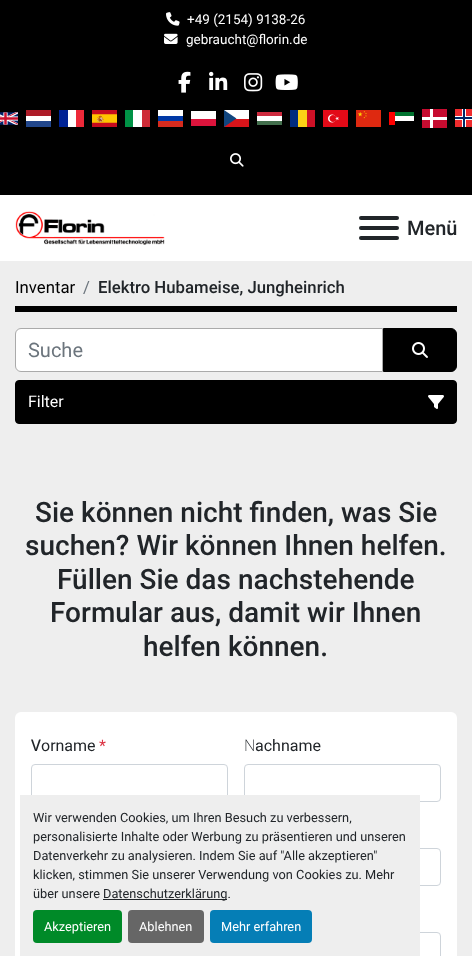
(async () => {
    const canvas = document.querySelector("canvas");
    canvas.width = 472;
    canvas.height = 956;
    const context = canvas.getContext("2d");
    context.miterLimit = 4;
    context.fontKerning = "normal";
    function write(s, x, y, font, color) {
        context.font = font;
        context.fillStyle = color;
        context.fillText(s, x, y);
    }
    function block(x, y, w, h, color) {
        context.fillStyle = color;
        context.fillRect(x, y, w, h);
    }
    function card(x, y, w, h, r, color) {
        context.fillStyle = color;
        context.beginPath();
        context.roundRect(x, y, w, h, r);
        context.fill();
    }
    async function photo(src, x, y, w, h) {
        const img = new Image();
        img.src = src;
        await img.decode();
        context.drawImage(img, x, y, w, h);
    }

    block(0, 0, 472, 956, "rgb(238, 238, 238)");
    block(0, 0, 472, 195, "rgb(0, 0, 0)");
    await photo("media/1.png", 166, 12, 14, 14);
    write("+49 (2154) 9138-26", 187, 24, "13.5px Roboto", "rgb(255, 255, 255)");
    await photo("media/2.png", 164, 33, 14, 11);
    write("gebraucht@florin.de", 186, 44, "13.5px Roboto", "rgb(255, 255, 255)");
    await photo("media/3.png", 178, 71, 13, 22);
    await photo("media/4.png", 209, 71, 19, 19);
    await photo("media/5.png", 244, 73, 19, 19);
    await photo("media/6.png", 275, 74, 23, 16);
    await photo("media/7.png", 0, 112, 18, 13);
    block(26, 110, 25, 6, "rgb(174, 28, 40)");
    block(26, 116, 25, 5, "rgb(255, 255, 255)");
    block(26, 121, 25, 6, "rgb(33, 70, 139)");
    block(59, 110, 9, 17, "rgb(0, 35, 149)");
    block(68, 110, 8, 17, "rgb(255, 255, 255)");
    block(76, 110, 8, 17, "rgb(237, 41, 57)");
    await photo("media/8.png", 92, 110, 25, 17);
    block(125, 110, 8, 17, "rgb(0, 146, 70)");
    block(133, 110, 9, 17, "rgb(255, 255, 255)");
    block(142, 110, 8, 17, "rgb(206, 43, 55)");
    block(158, 110, 25, 6, "rgb(255, 255, 255)");
    block(158, 116, 25, 5, "rgb(0, 57, 166)");
    block(158, 121, 25, 6, "rgb(213, 43, 30)");
    block(191, 111, 25, 8, "rgb(255, 255, 255)");
    block(191, 119, 25, 7, "rgb(220, 20, 60)");
    block(224, 110, 25, 9, "rgb(255, 255, 255)");
    block(224, 119, 25, 8, "rgb(215, 20, 26)");
    context.fillStyle = "rgb(17, 69, 126)";
    context.beginPath();
    context.moveTo(236.5, 118.5);
    context.lineTo(224, 110);
    context.lineTo(224, 127);
    context.closePath();
    context.fill();
    block(257, 112, 25, 4, "rgb(205, 42, 62)");
    block(257, 116, 25, 5, "rgb(255, 255, 255)");
    block(257, 121, 25, 4, "rgb(67, 111, 77)");
    block(290, 110, 8, 17, "rgb(0, 43, 127)");
    block(298, 110, 9, 17, "rgb(252, 209, 22)");
    block(307, 110, 8, 17, "rgb(206, 17, 38)");
    await photo("media/9.png", 323, 110, 25, 17);
    await photo("media/10.png", 356, 110, 25, 17);
    block(389, 112, 25, 4, "rgb(0, 115, 47)");
    block(389, 116, 25, 5, "rgb(255, 255, 255)");
    block(389, 112, 6, 13, "rgb(255, 0, 0)");
    block(422, 109, 25, 19, "rgb(198, 12, 48)");
    block(430, 109, 3, 19, "rgb(255, 255, 255)");
    block(422, 117, 25, 3, "rgb(255, 255, 255)");
    await photo("media/11.png", 455, 109, 17, 18);
    await photo("media/12.png", 230, 153, 14, 14);
    block(0, 195, 472, 66, "rgb(255, 255, 255)");
    await photo("media/13.png", 15, 211, 150, 34);
    card(359, 226, 40, 4, 2, "rgb(33, 37, 41)");
    card(359, 216, 40, 4, 2, "rgb(33, 37, 41)");
    card(359, 236, 40, 4, 2, "rgb(33, 37, 41)");
    write("Menü", 407, 235, "500 20px Roboto", "rgb(33, 37, 41)");
    block(15, 306, 442, 6, "rgb(0, 0, 0)");
    write("Inventar", 15, 293, "16.75px Roboto", "rgb(0, 0, 0)");
    write("/", 83, 293, "16.75px Roboto", "rgb(108, 117, 125)");
    write("Elektro Hubameise, Jungheinrich", 98, 293, "500 16.75px Roboto", "rgb(33, 37, 41)");
    context.fillStyle = "rgb(255, 255, 255)";
    context.beginPath();
    context.roundRect(15.5, 328.5, 367, 43, [5.5, 0, 0, 5.5]);
    context.fill();
    context.strokeStyle = "rgb(170, 170, 170)";
    context.stroke();
    write("Suche", 28, 357, "20px Roboto", "rgb(108, 117, 125)");
    context.fillStyle = "rgb(0, 0, 0)";
    context.beginPath();
    context.roundRect(383.5, 328.5, 73, 43, [0, 5.5, 5.5, 0]);
    context.fill();
    context.strokeStyle = "rgb(0, 0, 0)";
    context.stroke();
    await photo("media/14.png", 412, 342, 16, 16);
    context.beginPath();
    context.roundRect(15.5, 380.5, 441, 43, 3.5);
    context.fill();
    context.stroke();
    write("Filter", 28, 407, "16px Roboto", "rgb(255, 255, 255)");
    await photo("media/15.png", 428, 395, 16, 14);
    write("Sie können nicht finden, was Sie", 35, 522, "500 28px Roboto", "rgb(33, 37, 41)");
    write("suchen? Wir können Ihnen helfen.", 25, 555, "500 28px Roboto", "rgb(33, 37, 41)");
    write("Füllen Sie das nachstehende", 57, 589, "500 28px Roboto", "rgb(33, 37, 41)");
    write("Formular aus, damit wir Ihnen", 50, 622, "500 28px Roboto", "rgb(33, 37, 41)");
    write("helfen können.", 143, 656, "500 28px Roboto", "rgb(33, 37, 41)");
    card(15, 712, 442, 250, 6, "rgb(255, 255, 255)");
    write("V", 31, 751, "500 16px Noto Sans", "rgb(33, 37, 41)");
    write("orname", 41, 751, "16px Roboto", "rgb(33, 37, 41)");
    write("*", 99, 751, "16px Roboto", "rgb(220, 53, 69)");
    context.beginPath();
    context.roundRect(31.5, 764.5, 196, 37, 3.5);
    context.strokeStyle = "rgb(206, 212, 218)";
    context.stroke();
    write("N", 244, 751, "200 16px Noto Sans", "rgb(33, 37, 41)");
    write("achname", 255, 751, "16px Roboto", "rgb(33, 37, 41)");
    context.beginPath();
    context.roundRect(244.5, 764.5, 196, 37, 3.5);
    context.stroke();
    context.beginPath();
    context.roundRect(31.5, 848.5, 409, 37, 3.5);
    context.stroke();
    context.beginPath();
    context.roundRect(31.5, 932.5, 409, 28, 3.5);
    context.stroke();
    block(20, 795, 400, 161, "rgb(238, 238, 238)");
    write("Wir verwenden Cookies, um Ihren Besuch zu verbessern,", 33, 822, "12.8px Roboto", "rgb(33, 37, 41)");
    write("personalisierte Inhalte oder Werbung zu präsentieren und unseren", 33, 841, "12.8px Roboto", "rgb(33, 37, 41)");
    write("Datenverkehr zu analysieren. Indem Sie auf \"Alle akzeptieren\"", 33, 860, "12.8px Roboto", "rgb(33, 37, 41)");
    write("klicken, stimmen Sie unserer Verwendung von Cookies zu. Mehr", 33, 879, "12.8px Roboto", "rgb(33, 37, 41)");
    write("über unsere", 33, 898, "12.8px Roboto", "rgb(33, 37, 41)");
    block(103, 899, 124, 1, "rgb(33, 37, 41)");
    write("Datenschutzerklärung.", 103, 898, "12.8px Roboto", "rgb(33, 37, 41)");
    card(33, 910, 89, 33, 4, "rgb(0, 138, 40)");
    write("Akzeptieren", 44, 931, "12.8px Roboto", "rgb(255, 255, 255)");
    card(128, 910, 76, 33, 4, "rgb(102, 102, 102)");
    write("Ablehnen", 139, 931, "12.8px Roboto", "rgb(255, 255, 255)");
    card(210, 910, 102, 33, 4, "rgb(5, 126, 182)");
    write("Mehr erfahren", 221, 931, "12.8px Roboto", "rgb(255, 255, 255)");
})();
